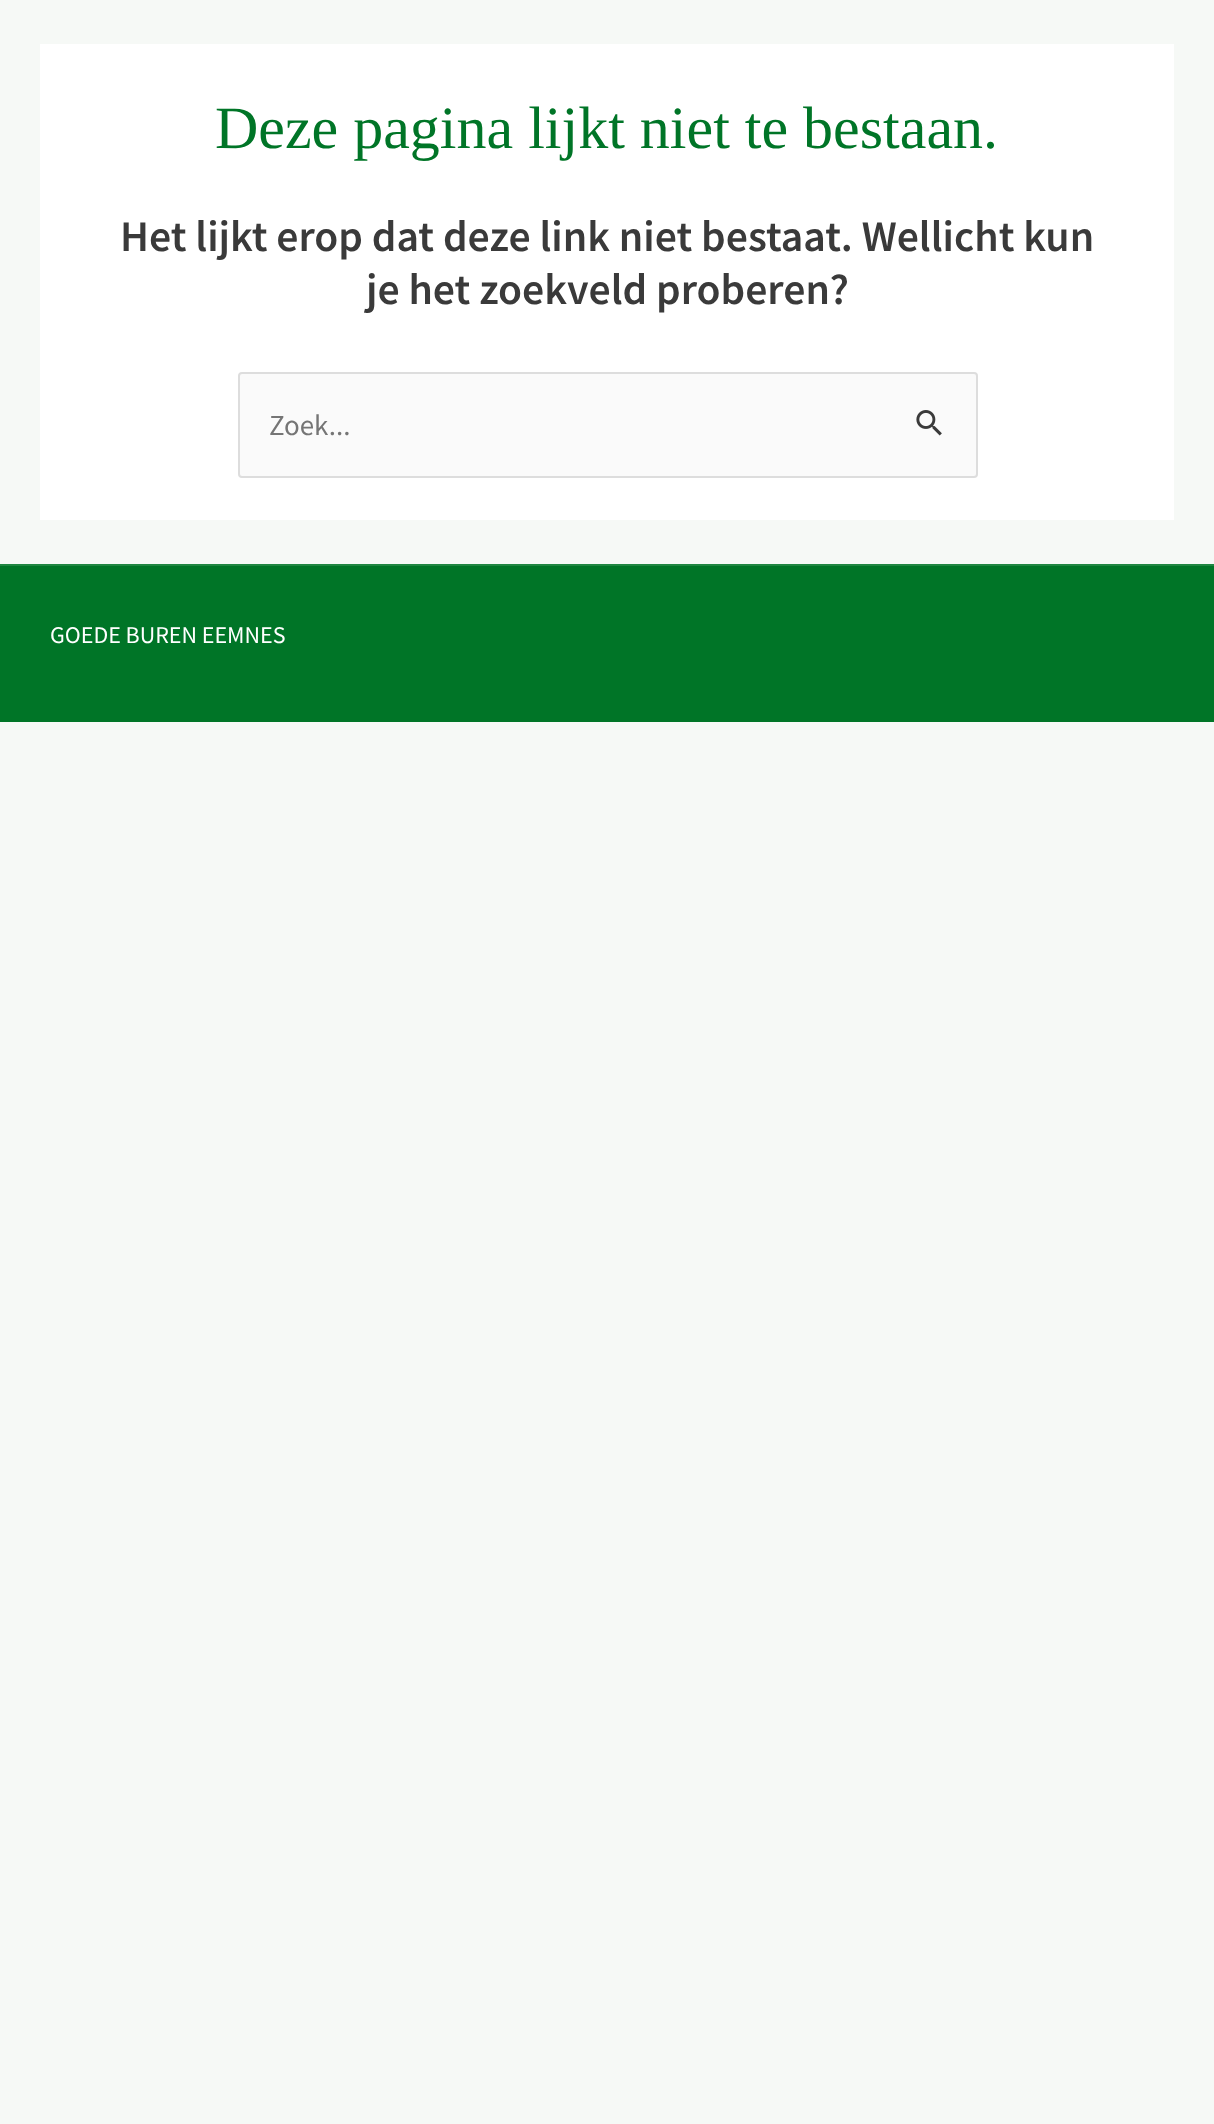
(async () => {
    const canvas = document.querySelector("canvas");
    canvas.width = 1214;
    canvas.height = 2124;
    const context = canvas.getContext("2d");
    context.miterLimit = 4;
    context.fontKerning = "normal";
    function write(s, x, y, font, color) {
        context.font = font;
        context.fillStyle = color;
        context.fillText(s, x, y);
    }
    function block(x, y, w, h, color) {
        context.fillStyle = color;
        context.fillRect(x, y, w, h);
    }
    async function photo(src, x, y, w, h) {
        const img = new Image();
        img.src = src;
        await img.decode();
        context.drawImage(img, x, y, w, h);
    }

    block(0, 0, 1214, 2124, "rgb(246, 249, 246)");
    block(40, 44, 1134, 476, "rgb(255, 255, 255)");
    write("Deze pagina lijkt niet te bestaan.", 215, 148, "60px Liberation Serif", "rgb(0, 117, 39)");
    write("Het lijkt erop dat deze link niet bestaat. Wellicht kun", 120, 251, "600 43.75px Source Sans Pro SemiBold", "rgb(58, 58, 58)");
    write("je het zoekveld proberen?", 366, 304, "600 43.75px Source Sans Pro SemiBold", "rgb(58, 58, 58)");
    context.fillStyle = "rgb(250, 250, 250)";
    context.beginPath();
    context.roundRect(239, 373, 738, 104, 3);
    context.fill();
    context.strokeStyle = "rgb(221, 221, 221)";
    context.lineWidth = 2;
    context.stroke();
    write("Zoek...", 269, 435, "29px Source Sans Pro", "rgb(117, 117, 117)");
    await photo("media/1.png", 916, 410, 26, 26);
    block(0, 566, 1214, 156, "rgb(0, 117, 39)");
    block(0, 564, 1214, 2, "rgb(31, 134, 65)");
    write("GOEDE BUREN EEMNES", 50, 643, "24px Source Sans Pro", "rgb(255, 255, 255)");
})();
